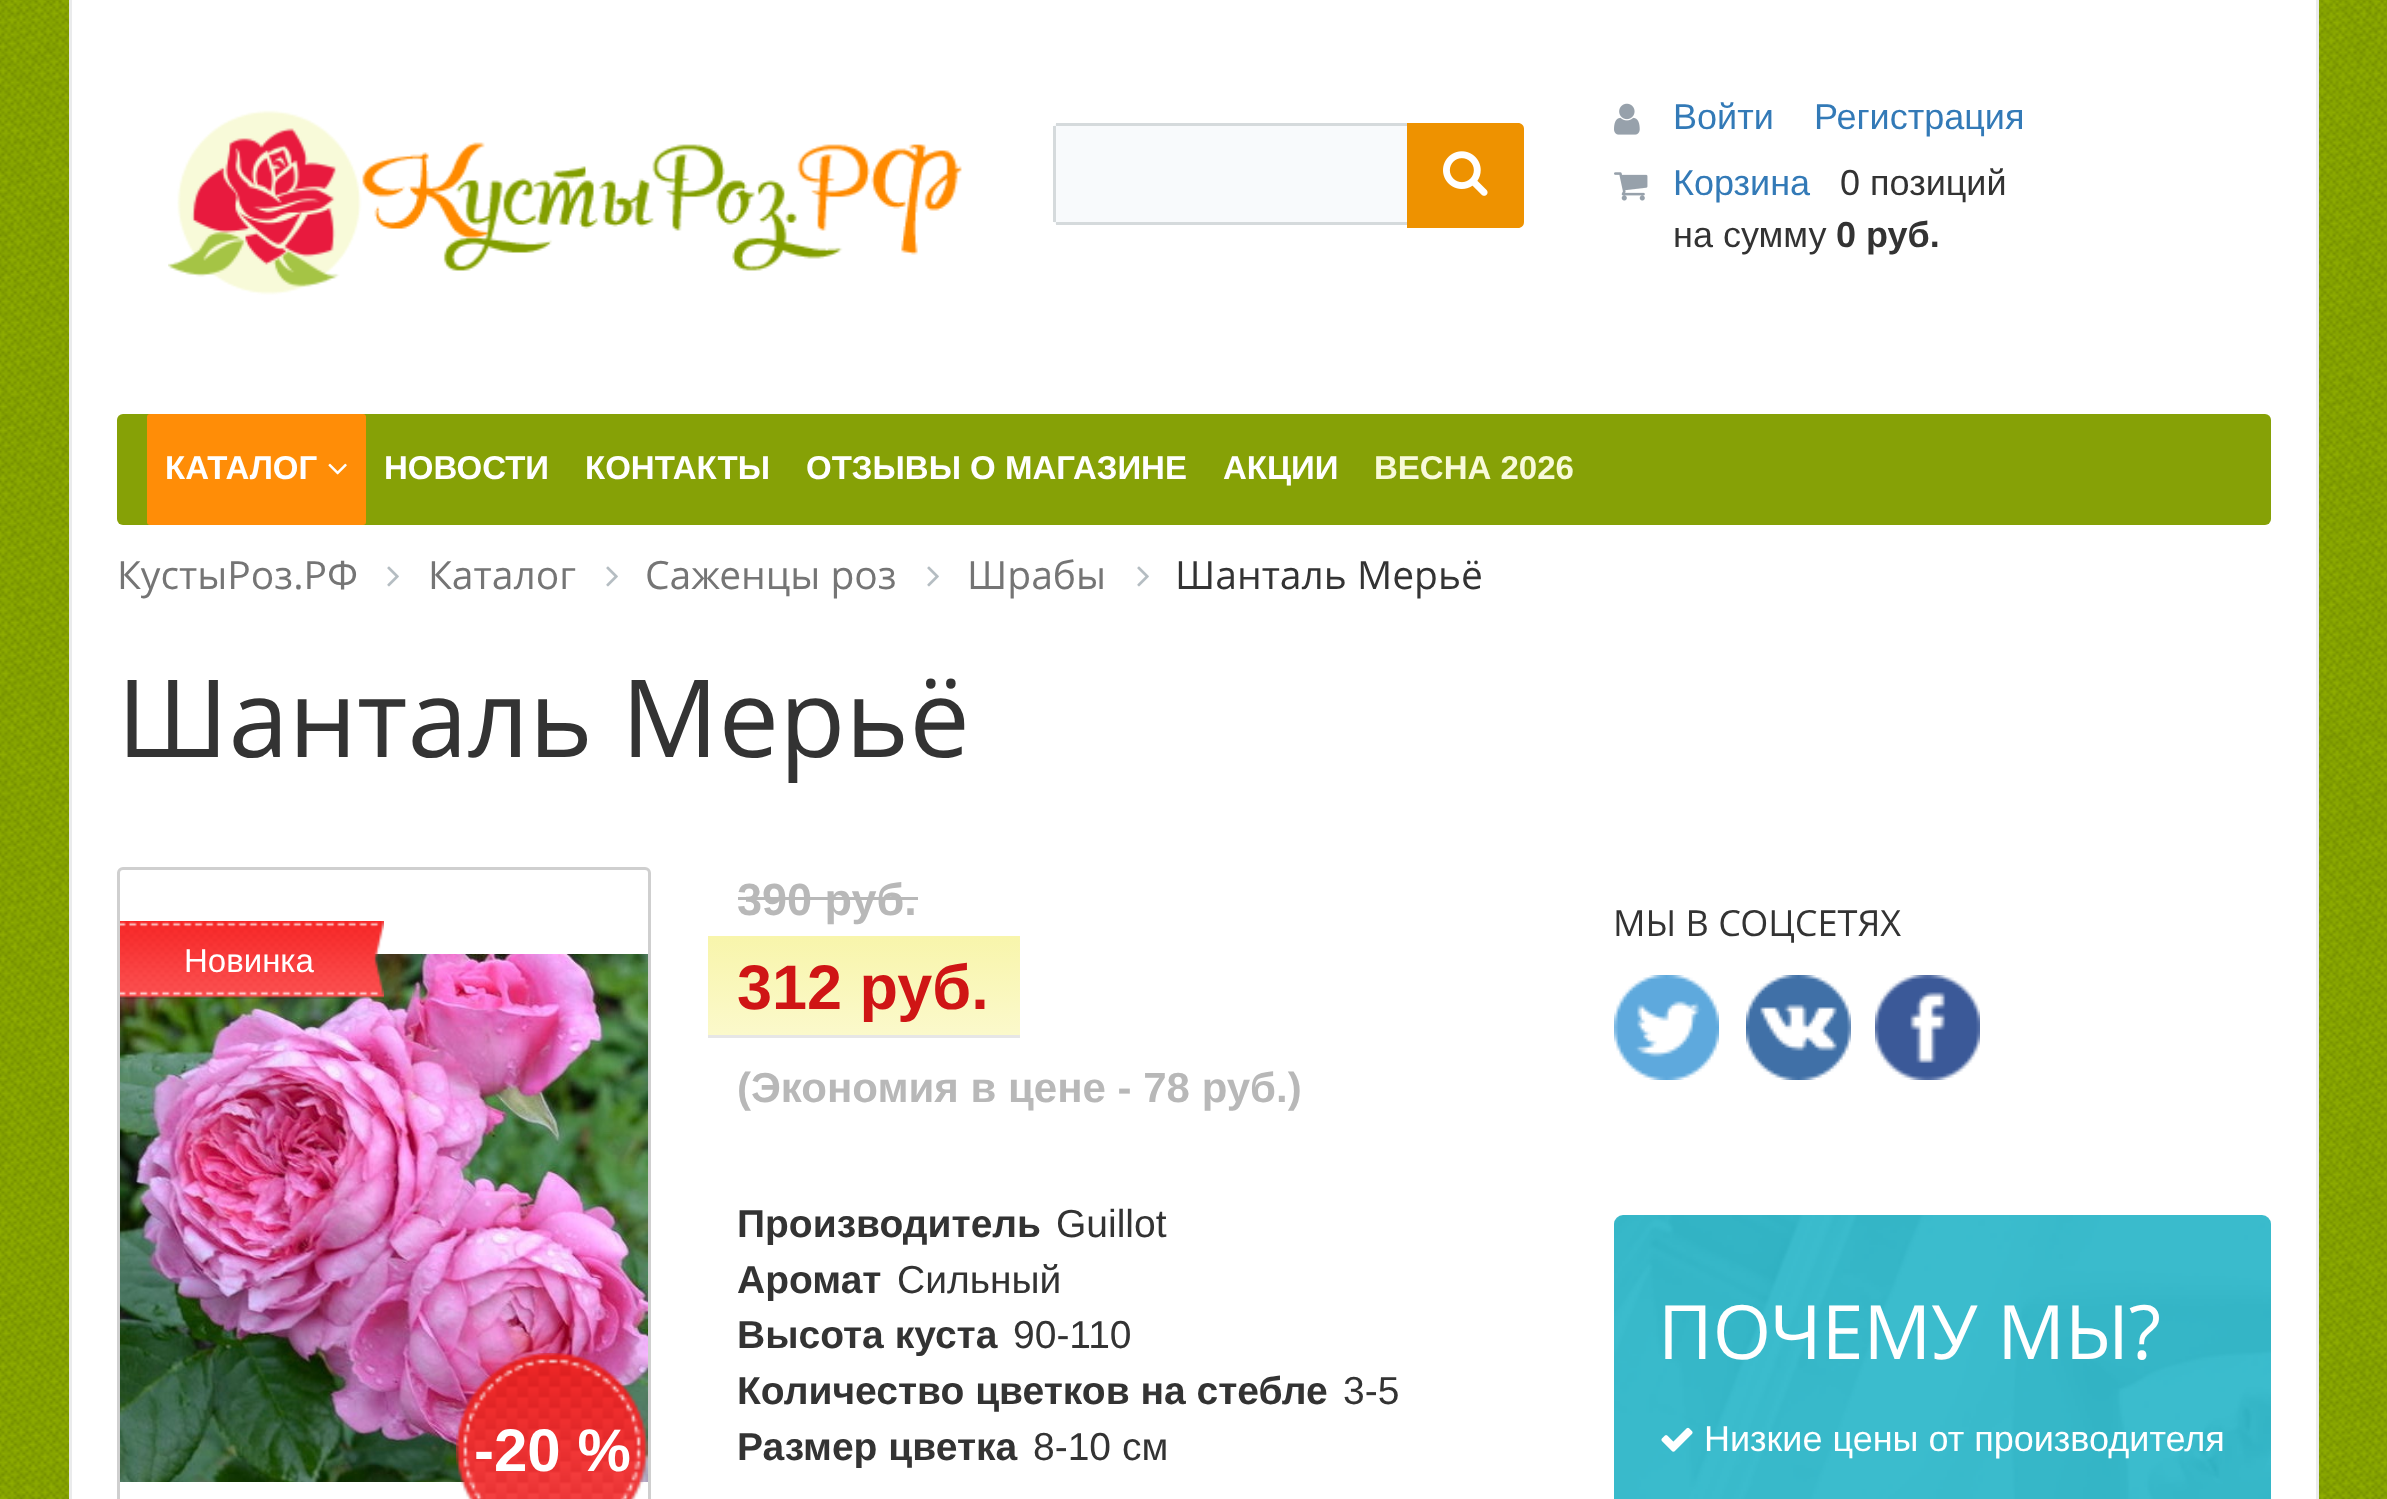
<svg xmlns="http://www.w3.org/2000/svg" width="2387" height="1499">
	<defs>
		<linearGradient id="g1" gradientUnits="userSpaceOnUse" x1="864" y1="936" x2="864" y2="1035"><stop offset="0" stop-color="#F8F5AB" /><stop offset="1" stop-color="#FBF9CB" /></linearGradient>
	</defs>
	<rect width="100%" height="100%" fill="#FFFFFF" />
	<image x="0" y="0" width="2387" height="1499" href="assets/img1.png" />
	<rect x="72" y="0" width="2244" height="1499" fill="#FFFFFF" />
	<rect x="2316" y="0" width="3" height="1499" fill="#EAEBEC" />
	<rect x="69" y="0" width="3" height="1499" fill="#EAEBEC" />
	<image x="168" y="110" width="794" height="185" href="assets/img2.png" />
	<path d="M1059 123H1407V225H1059C1055.5 225 1053 222.5 1053 219V129C1053 125.5 1055.5 123 1059 123Z" fill="#F8FAFC" />
	<rect x="1056" y="123" width="351" height="3" fill="#D5DADC" />
	<rect x="1056" y="222" width="351" height="3" fill="#D5DADC" />
	<rect x="1053" y="126" width="3" height="96" fill="#D5DADC" />
	<path d="M1407 123H1518C1521.5 123 1524 125.5 1524 129V222C1524 225.5 1521.5 228 1518 228H1407Z" fill="#EE9200" />
	<image x="1443" y="151" width="45" height="45" href="assets/img3.png" />
	<image x="1614" y="103" width="26" height="32" href="assets/img4.png" />
	<g font-family="Liberation Sans" font-size="36" fill="#337AB7">
		<text x="1673" y="129">Войти</text>
		<text x="1814" y="129">Регистрация</text>
	</g>
	<image x="1614" y="172" width="34" height="29" href="assets/img5.png" />
	<text x="1673" y="195" font-family="Liberation Sans" font-size="36" fill="#337AB7">Корзина</text>
	<g font-family="Liberation Sans" font-size="36" fill="#333333">
		<text x="1840" y="195">0 позиций</text>
		<text x="1673" y="247">на сумму</text>
	</g>
	<text x="1836" y="247" font-family="Liberation Sans" font-size="36" font-weight="700" fill="#333333">0 руб.</text>
	<rect x="117" y="414" width="2154" height="111" rx="6" fill="#86A106" />
	<rect x="147" y="414" width="219" height="111" rx="3" fill="#FF8D07" />
	<text x="165" y="479" font-family="Liberation Sans" font-size="33" font-weight="700" fill="#FFFFFF">КАТАЛОГ</text>
	<image x="328" y="463" width="19" height="12" href="assets/img6.png" />
	<g font-family="Liberation Sans" font-size="33" font-weight="700" fill="#FFFFFF">
		<text x="384" y="479">НОВОСТИ</text>
		<text x="585" y="479">КОНТАКТЫ</text>
		<text x="806" y="479">ОТЗЫВЫ О МАГАЗИНЕ</text>
		<text x="1223" y="479">АКЦИИ</text>
	</g>
	<text x="1374" y="479" font-family="Liberation Sans" font-size="33" font-weight="700" fill="#F8FAD9">ВЕСНА 2026</text>
	<text x="117" y="589" font-family="Open Sans" font-size="39" fill="#757575">КустыРоз.РФ</text>
	<image x="387" y="566" width="12" height="21" href="assets/img7.png" />
	<text x="428" y="589" font-family="Open Sans" font-size="39" fill="#757575">Каталог</text>
	<image x="606" y="566" width="12" height="21" href="assets/img7.png" />
	<text x="645" y="589" font-family="Open Sans" font-size="39" fill="#757575">Саженцы роз</text>
	<image x="927" y="566" width="12" height="21" href="assets/img7.png" />
	<text x="967" y="589" font-family="Open Sans" font-size="39" fill="#757575">Шрабы</text>
	<image x="1137" y="566" width="12" height="21" href="assets/img7.png" />
	<text x="1175" y="589" font-family="Open Sans" font-size="39" fill="#333333">Шанталь Мерьё</text>
	<text x="117" y="757" font-family="Open Sans" font-size="108" fill="#333333">Шанталь Мерьё</text>
	<rect x="118.5" y="868.5" width="531" height="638" rx="4.5" fill="none" stroke="#CFCFCF" stroke-width="3" />
	<image x="120" y="954" width="528" height="528" href="assets/img9.png" />
	<image x="120" y="921" width="264" height="78" href="assets/img8.png" />
	<text x="184" y="972" font-family="Liberation Sans" font-size="33" fill="#FFFFFF">Новинка</text>
	<image x="456" y="1353" width="192" height="146" href="assets/img10.png" />
	<text x="474" y="1471" font-family="Liberation Sans" font-size="60" font-weight="700" fill="#FFFFFF">-20 %</text>
	<text x="737" y="915" font-family="Liberation Sans" font-size="45" font-weight="700" fill="#B8B8B8">390 руб.</text>
	<rect x="738" y="897" width="180" height="3" fill="#B8B8B8" />
	<rect x="708" y="936" width="312" height="99" fill="url(#g1)" />
	<rect x="708" y="1035" width="312" height="3" fill="#E6E6E6" />
	<text x="737" y="1009" font-family="Liberation Sans" font-size="63" font-weight="700" fill="#CF1515">312 руб.</text>
	<text x="737" y="1102" font-family="Liberation Sans" font-size="42" font-weight="700" fill="#B8B8B8">(Экономия в цене - 78 руб.)</text>
	<text x="737" y="1237" font-family="Liberation Sans" font-size="39" font-weight="700" fill="#333333">Производитель</text>
	<text x="1056" y="1237" font-family="Liberation Sans" font-size="39" fill="#333333">Guillot</text>
	<text x="737" y="1293" font-family="Liberation Sans" font-size="39" font-weight="700" fill="#333333">Аромат</text>
	<text x="897" y="1293" font-family="Liberation Sans" font-size="39" fill="#333333">Сильный</text>
	<text x="737" y="1348" font-family="Liberation Sans" font-size="39" font-weight="700" fill="#333333">Высота куста</text>
	<text x="1013" y="1348" font-family="Liberation Sans" font-size="39" fill="#333333">90-110</text>
	<text x="737" y="1404" font-family="Liberation Sans" font-size="39" font-weight="700" fill="#333333">Количество цветков на стебле</text>
	<text x="1343" y="1404" font-family="Liberation Sans" font-size="39" fill="#333333">3-5</text>
	<text x="737" y="1460" font-family="Liberation Sans" font-size="39" font-weight="700" fill="#333333">Размер цветка</text>
	<text x="1033" y="1460" font-family="Liberation Sans" font-size="39" fill="#333333">8-10 см</text>
	<text x="1613" y="936" font-family="Open Sans" font-size="36" fill="#333333">МЫ В СОЦСЕТЯХ</text>
	<image x="1614" y="975" width="105" height="105" href="assets/img11.png" />
	<image x="1746" y="975" width="105" height="105" href="assets/img12.png" />
	<image x="1875" y="975" width="105" height="105" href="assets/img13.png" />
	<image x="1614" y="1215" width="657" height="284" href="assets/img14.png" />
	<text x="1658" y="1359" font-family="Open Sans" font-size="75" fill="#FFFFFF">ПОЧЕМУ МЫ?</text>
	<image x="1661" y="1427" width="32" height="25" href="assets/img15.png" />
	<text x="1704" y="1451" font-family="Liberation Sans" font-size="36" fill="#FFFFFF">Низкие цены от производителя</text>
</svg>
